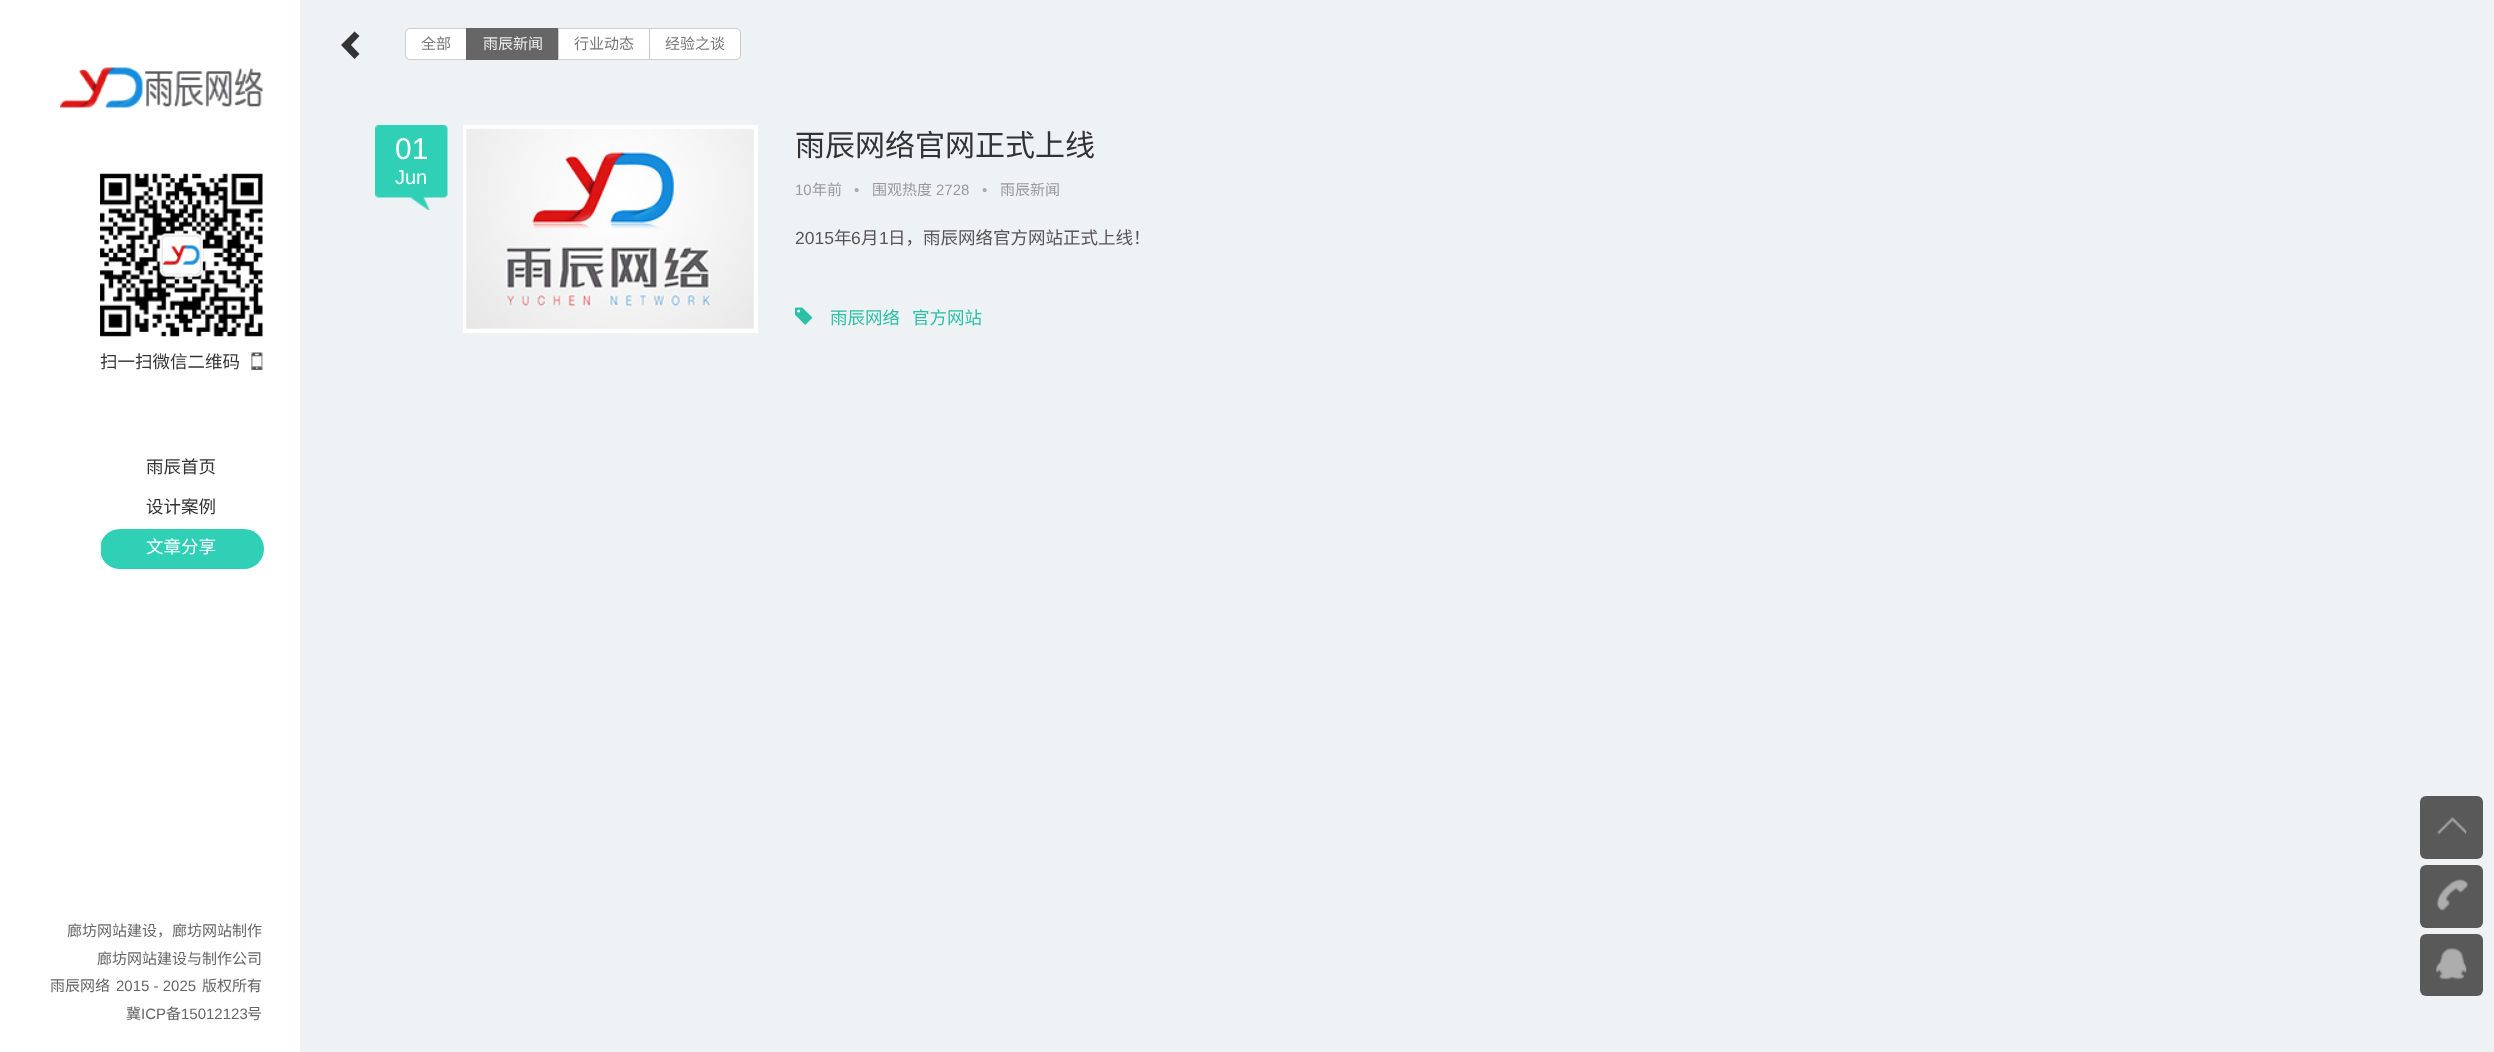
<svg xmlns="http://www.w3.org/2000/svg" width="2494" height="1052">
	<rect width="100%" height="100%" fill="#EFF2F4" />
	<path d="M359.5 36L351 45L359.5 54L354.5 59L341 45L354.5 31.5Z" fill="#333333" />
	<path d="M410 28.5H467.5V59.5H410C407.5 59.5 405.5 57.5 405.5 55V33C405.5 30.5 407.5 28.5 410 28.5Z" fill="#FFFFFF" stroke="#CCCCCC" />
	<text x="421" y="49" font-family="Noto Sans CJK SC" font-size="15" fill="#777777">全部</text>
	<rect x="466" y="28" width="92" height="32" fill="#666666" />
	<text x="483" y="49" font-family="Noto Sans CJK SC" font-size="15" fill="#EEEEEE">雨辰新闻</text>
	<rect x="558.5" y="28.5" width="91" height="31" fill="#FFFFFF" stroke="#CCCCCC" />
	<text x="574" y="49" font-family="Noto Sans CJK SC" font-size="15" fill="#777777">行业动态</text>
	<path d="M649.5 28.5H736C738.5 28.5 740.5 30.5 740.5 33V55C740.5 57.5 738.5 59.5 736 59.5H649.5Z" fill="#FFFFFF" stroke="#CCCCCC" />
	<text x="665" y="49" font-family="Noto Sans CJK SC" font-size="15" fill="#777777">经验之谈</text>
	<image x="375" y="125" width="73" height="85" href="assets/img1.png" />
	<text x="395" y="159" font-family="Liberation Sans" font-size="30" fill="#FFFFFF">01</text>
	<text x="395" y="184" font-family="Liberation Sans" font-size="20" fill="#FFFFFF">Jun</text>
	<rect x="463" y="125" width="295" height="208" fill="#FFFFFF" />
	<image x="466" y="128" width="288" height="201" href="assets/img2.png" />
	<text x="795" y="156" font-family="Noto Sans CJK SC" font-size="30" fill="#333333">雨辰网络官网正式上线</text>
	<text x="795" y="195" font-family="Liberation Sans" font-size="15" fill="#999999">10</text>
	<text x="812" y="195" font-family="Noto Sans CJK SC" font-size="15" fill="#999999">年前</text>
	<text x="854" y="195" font-family="Liberation Sans" font-size="15" fill="#AAAAAA">•</text>
	<text x="872" y="195" font-family="Noto Sans CJK SC" font-size="15" fill="#999999">围观热度</text>
	<text x="936" y="195" font-family="Liberation Sans" font-size="15" fill="#999999">2728</text>
	<text x="982" y="195" font-family="Liberation Sans" font-size="15" fill="#AAAAAA">•</text>
	<text x="1000" y="195" font-family="Noto Sans CJK SC" font-size="15" fill="#999999">雨辰新闻</text>
	<text x="795" y="244" font-family="Liberation Sans" font-size="17.5" fill="#555555">2015</text>
	<text x="834" y="244" font-family="Noto Sans CJK SC" font-size="17.5" fill="#555555">年</text>
	<text x="851" y="244" font-family="Liberation Sans" font-size="17.5" fill="#555555">6</text>
	<text x="861" y="244" font-family="Noto Sans CJK SC" font-size="17.5" fill="#555555">月</text>
	<text x="879" y="244" font-family="Liberation Sans" font-size="17.5" fill="#555555">1</text>
	<text x="888" y="244" font-family="Noto Sans CJK SC" font-size="17.5" fill="#555555">日，雨辰网络官方网站正式上线！</text>
	<image x="795" y="307" width="18" height="18" href="assets/img3.png" />
	<g font-family="Noto Sans CJK SC" font-size="17.5" fill="#2CC0A7">
		<text x="830" y="324">雨辰网络</text>
		<text x="912" y="324">官方网站</text>
	</g>
	<rect x="0" y="0" width="300" height="1052" fill="#FFFFFF" />
	<image x="60" y="67" width="203" height="41" href="assets/img4.png" />
	<image x="100" y="173" width="163" height="164" href="assets/img5.png" />
	<text x="100" y="368" font-family="Noto Sans CJK SC" font-size="17.5" fill="#333333">扫一扫微信二维码</text>
	<image x="251" y="352" width="12" height="18" href="assets/img6.png" />
	<g font-family="Noto Sans CJK SC" font-size="17.5" fill="#333333">
		<text x="146" y="473">雨辰首页</text>
		<text x="146" y="513">设计案例</text>
	</g>
	<rect x="100" y="529" width="164" height="40" rx="20" fill="#2FD0B5" />
	<rect x="100" y="539" width="1" height="20" fill="#EEEEEE" />
	<text x="146" y="553" font-family="Noto Sans CJK SC" font-size="17.5" fill="#FFFFFF">文章分享</text>
	<g font-family="Noto Sans CJK SC" font-size="15" fill="#666666">
		<text x="67" y="936">廊坊网站建设，廊坊网站制作</text>
		<text x="97" y="964">廊坊网站建设与制作公司</text>
		<text x="50" y="991">雨辰网络</text>
	</g>
	<text x="116" y="991" font-family="Liberation Sans" font-size="15" fill="#666666">2015 - 2025</text>
	<g font-family="Noto Sans CJK SC" font-size="15" fill="#666666">
		<text x="202" y="991">版权所有</text>
		<text x="126" y="1019">冀</text>
	</g>
	<text x="141" y="1019" font-family="Liberation Sans" font-size="15" fill="#666666">ICP</text>
	<text x="166" y="1019" font-family="Noto Sans CJK SC" font-size="15" fill="#666666">备</text>
	<text x="181" y="1019" font-family="Liberation Sans" font-size="15" fill="#666666">15012123</text>
	<text x="247" y="1019" font-family="Noto Sans CJK SC" font-size="15" fill="#666666">号</text>
	<rect x="2420" y="796" width="63" height="63" rx="6" fill="#59595A" />
	<image x="2437" y="817" width="30" height="18" href="assets/img7.png" />
	<rect x="2420" y="865" width="63" height="63" rx="6" fill="#59595A" />
	<image x="2437" y="879" width="31" height="32" href="assets/img8.png" />
	<rect x="2420" y="934" width="63" height="62" rx="6" fill="#59595A" />
	<image x="2436" y="948" width="31" height="32" href="assets/img9.png" />
</svg>
